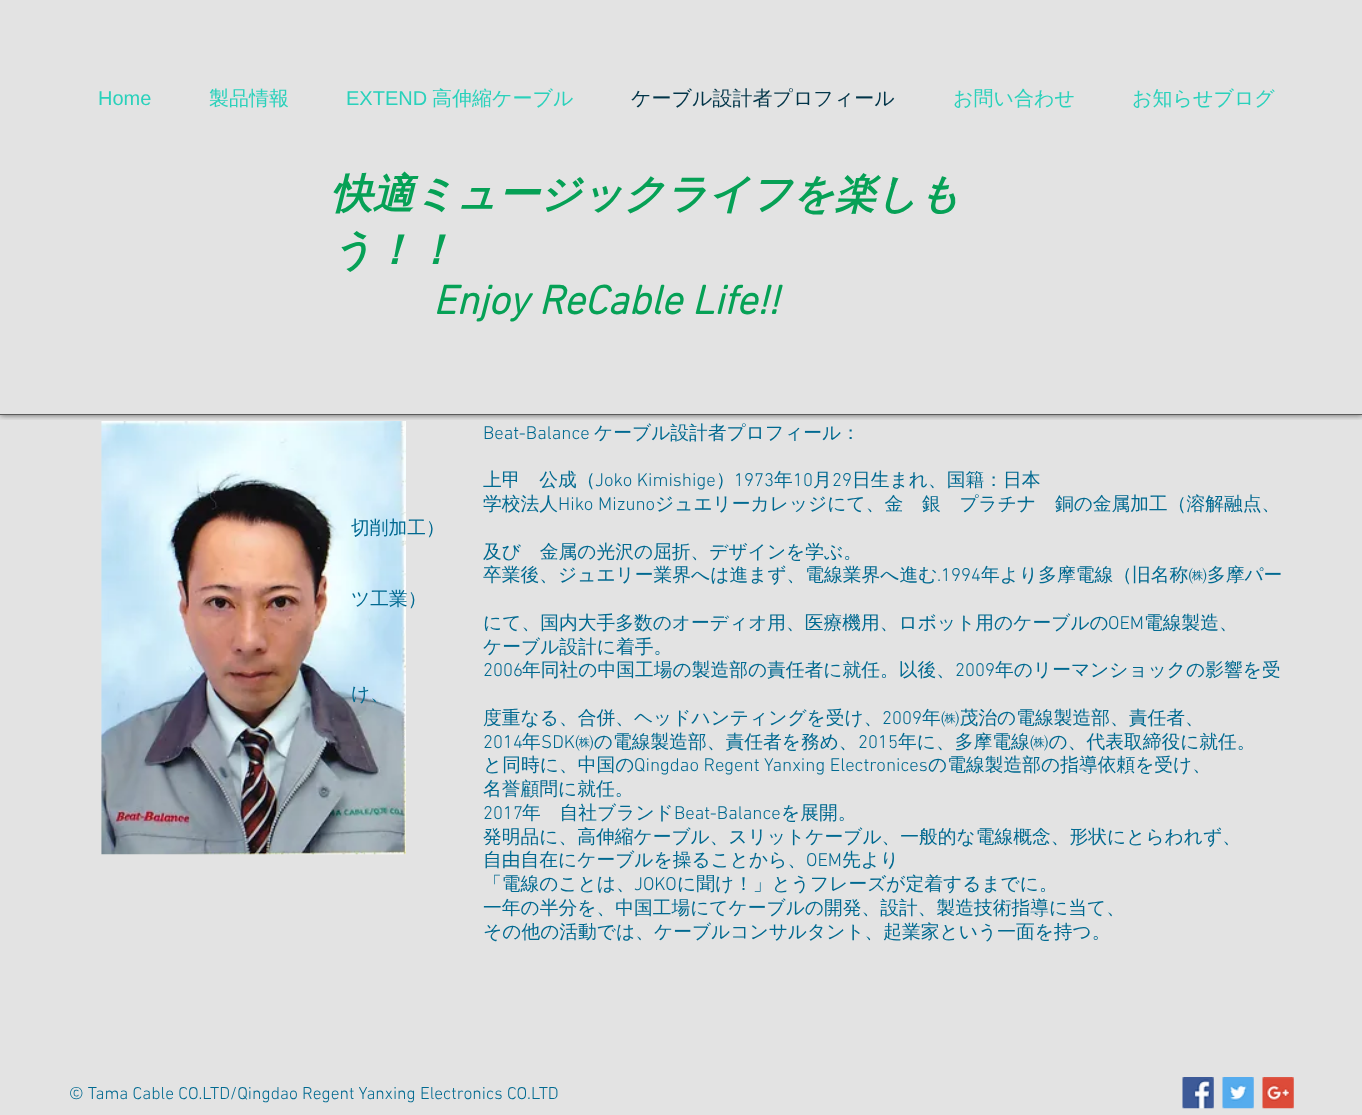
<svg xmlns="http://www.w3.org/2000/svg" width="1362" height="1115">
	<defs>
		<clipPath id="clip1"><rect x="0" y="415" width="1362" height="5" /></clipPath>
	</defs>
	<rect width="100%" height="100%" fill="#E3E3E3" />
	<g clip-path="url(#clip1)">
		<rect x="0" y="-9" width="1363" height="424" fill="#000000" fill-opacity="0.6" filter="blur(3px)" />
	</g>
	<rect x="0" y="414" width="1362" height="1" fill="#5B5B5B" />
	<text x="98" y="105" font-family="Liberation Sans" font-size="20" fill="#2AD1BB">Home</text>
	<text x="209" y="105" font-family="WenQuanYi Zen Hei" font-size="20" font-weight="500" fill="#2AD1BB">製品情報</text>
	<text x="346" y="105" font-family="Liberation Sans" font-size="20" fill="#2AD1BB">EXTEND</text>
	<text x="432" y="105" font-family="WenQuanYi Zen Hei" font-size="20" font-weight="500" fill="#2AD1BB">高伸縮ケーブル</text>
	<text x="631" y="105" font-family="WenQuanYi Zen Hei" font-size="20" font-weight="500" fill="#003448">ケーブル設計者プロフィール</text>
	<g font-family="WenQuanYi Zen Hei" font-size="20" font-weight="500" fill="#2AD1BB">
		<text x="953" y="105">お問い合わせ</text>
		<text x="1132" y="105">お知らせブログ</text>
	</g>
	<g font-family="WenQuanYi Zen Hei" font-size="41.25" font-weight="700" font-style="italic" fill="#06A156">
		<text x="331" y="208">快適ミュージックライフを楽しも</text>
		<text x="331" y="264">う！！</text>
	</g>
	<text x="433" y="314" font-family="'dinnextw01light'" font-size="41.25" font-weight="700" font-style="italic" fill="#06A156">Enjoy ReCable Life!!</text>
	<image x="101" y="421" width="305" height="434" href="assets/img1.png" />
	<text x="483" y="439" font-family="'dinnextw01light'" font-size="18.75" font-weight="300" fill="#006990">Beat-Balance</text>
	<g font-family="WenQuanYi Zen Hei" font-size="18.75" font-weight="500" fill="#006990">
		<text x="594" y="439">ケーブル設計者プロフィール：</text>
		<text x="483" y="486">上甲　公成（</text>
	</g>
	<text x="595" y="486" font-family="'dinnextw01light'" font-size="18.75" font-weight="300" fill="#006990">Joko Kimishige</text>
	<text x="716" y="486" font-family="WenQuanYi Zen Hei" font-size="18.75" font-weight="500" fill="#006990">）</text>
	<text x="734" y="486" font-family="'dinnextw01light'" font-size="18.75" font-weight="300" fill="#006990">1973</text>
	<text x="774" y="486" font-family="WenQuanYi Zen Hei" font-size="18.75" font-weight="500" fill="#006990">年</text>
	<text x="793" y="486" font-family="'dinnextw01light'" font-size="18.75" font-weight="300" fill="#006990">10</text>
	<text x="813" y="486" font-family="WenQuanYi Zen Hei" font-size="18.75" font-weight="500" fill="#006990">月</text>
	<text x="832" y="486" font-family="'dinnextw01light'" font-size="18.75" font-weight="300" fill="#006990">29</text>
	<g font-family="WenQuanYi Zen Hei" font-size="18.75" font-weight="500" fill="#006990">
		<text x="852" y="486">日生まれ、国籍：日本</text>
		<text x="483" y="510">学校法人</text>
	</g>
	<text x="558" y="510" font-family="'dinnextw01light'" font-size="18.75" font-weight="300" fill="#006990">Hiko Mizuno</text>
	<g font-family="WenQuanYi Zen Hei" font-size="18.75" font-weight="500" fill="#006990">
		<text x="655" y="510">ジュエリーカレッジにて、金　銀　プラチナ　銅の金属加工（溶解融点、</text>
		<text x="351" y="534">切削加工）</text>
		<text x="483" y="558">及び　金属の光沢の屈折、デザインを学ぶ。</text>
		<text x="483" y="581">卒業後、ジュエリー業界へは進まず、電線業界へ進む</text>
	</g>
	<text x="937" y="581" font-family="'dinnextw01light'" font-size="18.75" font-weight="300" fill="#006990">.1994</text>
	<g font-family="WenQuanYi Zen Hei" font-size="18.75" font-weight="500" fill="#006990">
		<text x="981" y="581">年より多摩電線（旧名称㈱多摩パー</text>
		<text x="351" y="605">ツ工業）</text>
		<text x="483" y="629">にて、国内大手多数のオーディオ用、医療機用、ロボット用のケーブルの</text>
	</g>
	<text x="1108" y="629" font-family="'dinnextw01light'" font-size="18.75" font-weight="300" fill="#006990">OEM</text>
	<g font-family="WenQuanYi Zen Hei" font-size="18.75" font-weight="500" fill="#006990">
		<text x="1144" y="629">電線製造、</text>
		<text x="483" y="653">ケーブル設計に着手。</text>
	</g>
	<text x="483" y="676" font-family="'dinnextw01light'" font-size="18.75" font-weight="300" fill="#006990">2006</text>
	<text x="522" y="676" font-family="WenQuanYi Zen Hei" font-size="18.75" font-weight="500" fill="#006990">年同社の中国工場の製造部の責任者に就任。以後、</text>
	<text x="955" y="676" font-family="'dinnextw01light'" font-size="18.75" font-weight="300" fill="#006990">2009</text>
	<g font-family="WenQuanYi Zen Hei" font-size="18.75" font-weight="500" fill="#006990">
		<text x="995" y="676">年のリーマンショックの影響を受</text>
		<text x="351" y="700">け、</text>
		<text x="483" y="724">度重なる、合併、ヘッドハンティングを受け、</text>
	</g>
	<text x="882" y="724" font-family="'dinnextw01light'" font-size="18.75" font-weight="300" fill="#006990">2009</text>
	<text x="922" y="724" font-family="WenQuanYi Zen Hei" font-size="18.75" font-weight="500" fill="#006990">年㈱茂治の電線製造部、責任者、</text>
	<text x="483" y="748" font-family="'dinnextw01light'" font-size="18.75" font-weight="300" fill="#006990">2014</text>
	<text x="522" y="748" font-family="WenQuanYi Zen Hei" font-size="18.75" font-weight="500" fill="#006990">年</text>
	<text x="541" y="748" font-family="'dinnextw01light'" font-size="18.75" font-weight="300" fill="#006990">SDK</text>
	<text x="575" y="748" font-family="WenQuanYi Zen Hei" font-size="18.75" font-weight="500" fill="#006990">㈱の電線製造部、責任者を務め、</text>
	<text x="858" y="748" font-family="'dinnextw01light'" font-size="18.75" font-weight="300" fill="#006990">2015</text>
	<g font-family="WenQuanYi Zen Hei" font-size="18.75" font-weight="500" fill="#006990">
		<text x="898" y="748">年に、多摩電線㈱の、代表取締役に就任。</text>
		<text x="483" y="771">と同時に、中国の</text>
	</g>
	<text x="634" y="771" font-family="'dinnextw01light'" font-size="18.75" font-weight="300" fill="#006990">Qingdao Regent Yanxing Electronices</text>
	<g font-family="WenQuanYi Zen Hei" font-size="18.75" font-weight="500" fill="#006990">
		<text x="928" y="771">の電線製造部の指導依頼を受け、</text>
		<text x="483" y="795">名誉顧問に就任。</text>
	</g>
	<text x="483" y="819" font-family="'dinnextw01light'" font-size="18.75" font-weight="300" fill="#006990">2017</text>
	<text x="522" y="819" font-family="WenQuanYi Zen Hei" font-size="18.75" font-weight="500" fill="#006990">年　自社ブランド</text>
	<text x="674" y="819" font-family="'dinnextw01light'" font-size="18.75" font-weight="300" fill="#006990">Beat-Balance</text>
	<g font-family="WenQuanYi Zen Hei" font-size="18.75" font-weight="500" fill="#006990">
		<text x="781" y="819">を展開。</text>
		<text x="483" y="843">発明品に、高伸縮ケーブル、スリットケーブル、一般的な電線概念、形状にとらわれず、</text>
		<text x="483" y="866">自由自在にケーブルを操ることから、</text>
	</g>
	<text x="806" y="866" font-family="'dinnextw01light'" font-size="18.75" font-weight="300" fill="#006990">OEM</text>
	<g font-family="WenQuanYi Zen Hei" font-size="18.75" font-weight="500" fill="#006990">
		<text x="842" y="866">先より</text>
		<text x="483" y="890">「電線のことは、</text>
	</g>
	<text x="634" y="890" font-family="'dinnextw01light'" font-size="18.75" font-weight="300" fill="#006990">JOKO</text>
	<g font-family="WenQuanYi Zen Hei" font-size="18.75" font-weight="500" fill="#006990">
		<text x="677" y="890">に聞け！」とうフレーズが定着するまでに。</text>
		<text x="483" y="914">一年の半分を、中国工場にてケーブルの開発、設計、製造技術指導に当て、</text>
		<text x="483" y="938">その他の活動では、ケーブルコンサルタント、起業家という一面を持つ。</text>
	</g>
	<text x="69" y="1099" font-family="'dinnextw01light'" font-size="17.5" font-weight="300" fill="#006990">© Tama Cable CO.LTD/Qingdao Regent Yanxing Electronics CO.LTD</text>
	<image x="1182" y="1077" width="32" height="32" href="assets/img2.png" />
	<image x="1222" y="1077" width="32" height="32" href="assets/img3.png" />
	<image x="1262" y="1077" width="32" height="32" href="assets/img4.png" />
</svg>
